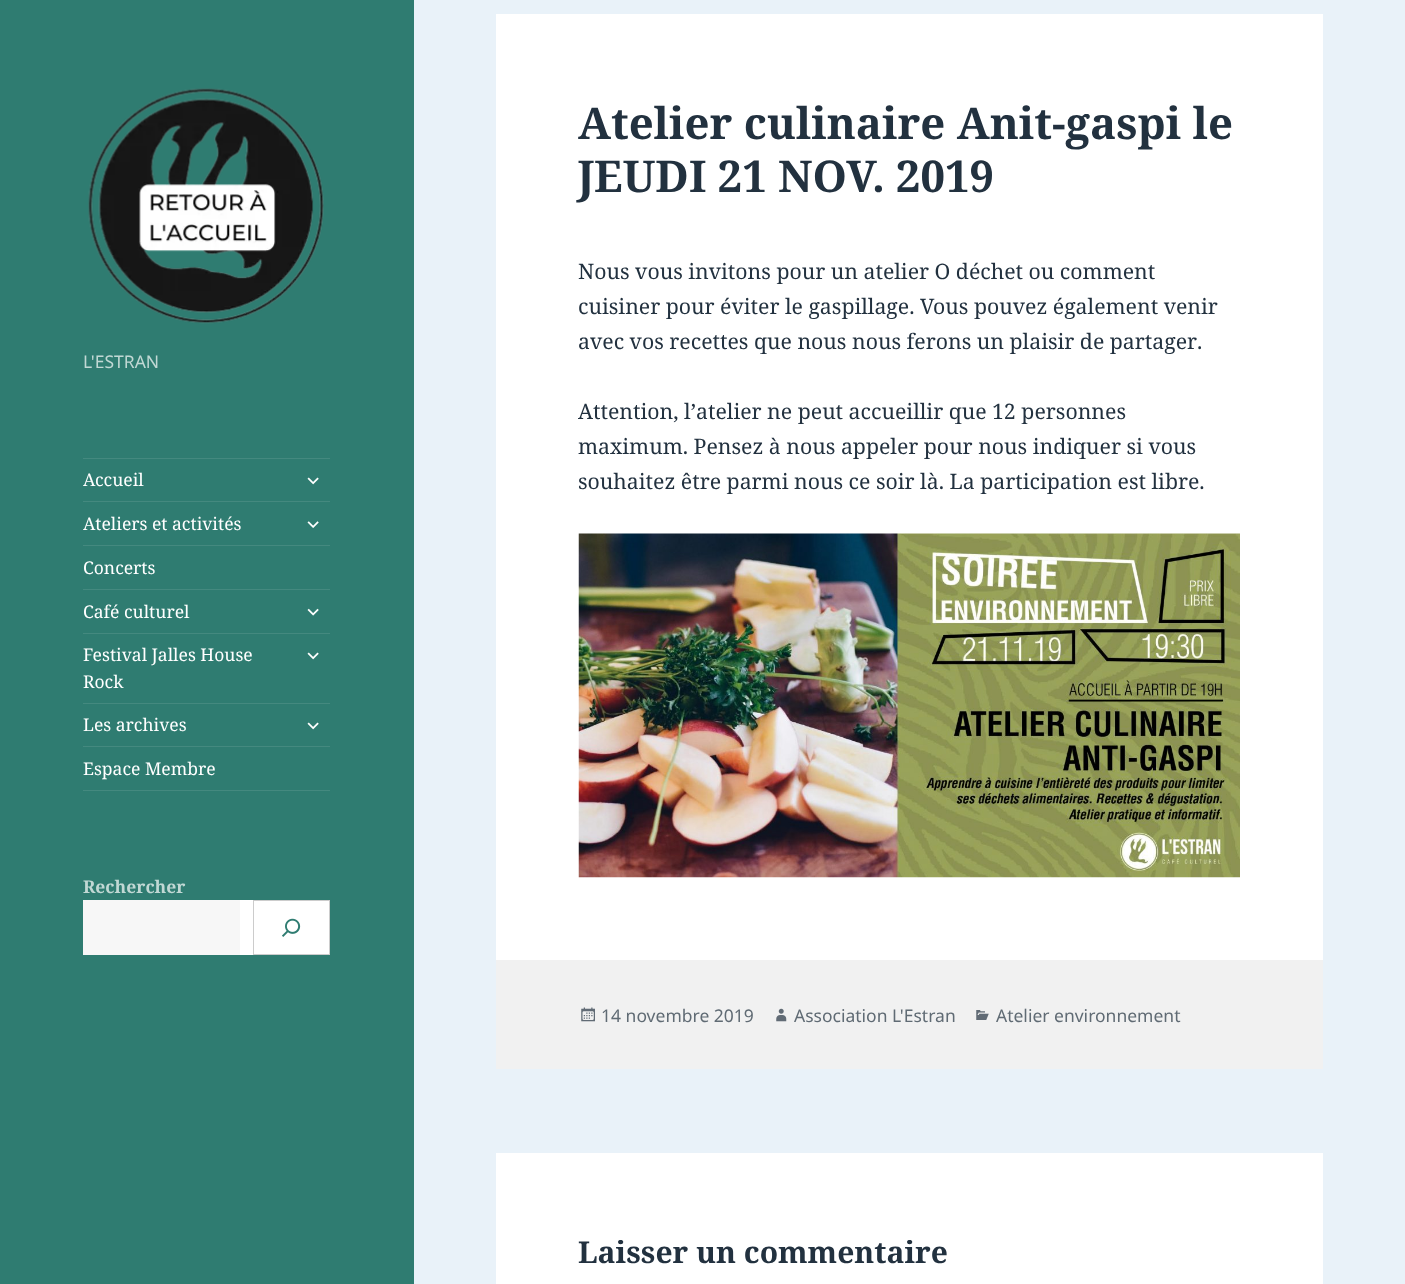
<svg xmlns="http://www.w3.org/2000/svg" width="1405" height="1284">
	<rect width="100%" height="100%" fill="#E9F2F9" />
	<rect x="0" y="0" width="414" height="1284" fill="#2F7C71" />
	<image x="88" y="88" width="236" height="236" href="assets/img1.png" />
	<text x="83" y="368" font-family="Noto Sans" font-size="17.5" fill="#C1D8D4">L'ESTRAN</text>
	<rect x="83" y="458" width="247" height="1" fill="#44897F" />
	<rect x="83" y="790" width="247" height="1" fill="#44897F" />
	<text x="83" y="486" font-family="Noto Serif" font-size="17.5" fill="#FFFFFF">Accueil</text>
	<image x="307" y="477" width="12" height="8" href="assets/img2.png" />
	<rect x="83" y="501" width="247" height="1" fill="#44897F" />
	<text x="83" y="530" font-family="Noto Serif" font-size="17.5" fill="#FFFFFF">Ateliers et activités</text>
	<image x="307" y="521" width="12" height="7" href="assets/img3.png" />
	<rect x="83" y="545" width="247" height="1" fill="#44897F" />
	<text x="83" y="574" font-family="Noto Serif" font-size="17.5" fill="#FFFFFF">Concerts</text>
	<rect x="83" y="589" width="247" height="1" fill="#44897F" />
	<text x="83" y="618" font-family="Noto Serif" font-size="17.5" fill="#FFFFFF">Café culturel</text>
	<image x="307" y="608" width="12" height="8" href="assets/img4.png" />
	<rect x="83" y="633" width="247" height="1" fill="#44897F" />
	<g font-family="Noto Serif" font-size="17.5" fill="#FFFFFF">
		<text x="83" y="661">Festival Jalles House</text>
		<text x="83" y="688">Rock</text>
	</g>
	<image x="307" y="652" width="12" height="8" href="assets/img2.png" />
	<rect x="83" y="703" width="247" height="1" fill="#44897F" />
	<text x="83" y="731" font-family="Noto Serif" font-size="17.5" fill="#FFFFFF">Les archives</text>
	<image x="307" y="722" width="12" height="8" href="assets/img2.png" />
	<rect x="83" y="746" width="247" height="1" fill="#44897F" />
	<text x="83" y="775" font-family="Noto Serif" font-size="17.5" fill="#FFFFFF">Espace Membre</text>
	<text x="83" y="893" font-family="Noto Serif" font-size="17.5" font-weight="700" fill="#C1D8D4">Rechercher</text>
	<rect x="240" y="900" width="89" height="55" fill="#FFFFFF" />
	<rect x="83" y="900" width="157" height="55" fill="#F7F7F7" />
	<rect x="253.5" y="900.5" width="76" height="54" fill="none" stroke="#CCCCCC" />
	<image x="282" y="918" width="19" height="19" href="assets/img5.png" />
	<rect x="496" y="14" width="827" height="946" fill="#FFFFFF" />
	<g font-family="Noto Serif" font-size="43.75" font-weight="700" fill="#22313F">
		<text x="578" y="139">Atelier culinaire Anit-gaspi le</text>
		<text x="578" y="192">JEUDI 21 NOV. 2019</text>
	</g>
	<g font-family="Noto Serif" font-size="21.25" fill="#22313F">
		<text x="578" y="279">Nous vous invitons pour un atelier O déchet ou comment</text>
		<text x="578" y="314">cuisiner pour éviter le gaspillage. Vous pouvez également venir</text>
		<text x="578" y="349">avec vos recettes que nous nous ferons un plaisir de partager.</text>
		<text x="578" y="419">Attention, l’atelier ne peut accueillir que 12 personnes</text>
		<text x="578" y="454">maximum. Pensez à nous appeler pour nous indiquer si vous</text>
		<text x="578" y="489">souhaitez être parmi nous ce soir là. La participation est libre.</text>
	</g>
	<image x="578" y="533" width="662" height="345" href="assets/img6.png" />
	<rect x="496" y="960" width="827" height="109" fill="#F1F1F1" />
	<image x="581" y="1007" width="14" height="15" href="assets/img7.png" />
	<text x="601" y="1022" font-family="Noto Sans" font-size="17.5" fill="#606B74">14 novembre 2019</text>
	<image x="776" y="1008" width="11" height="14" href="assets/img8.png" />
	<text x="794" y="1022" font-family="Noto Sans" font-size="17.5" fill="#606B74">Association L'Estran</text>
	<image x="976" y="1010" width="13" height="10" href="assets/img9.png" />
	<text x="996" y="1022" font-family="Noto Sans" font-size="17.5" fill="#606B74">Atelier environnement</text>
	<rect x="496" y="1153" width="827" height="131" fill="#FFFFFF" />
	<text x="578" y="1263" font-family="Noto Serif" font-size="30" font-weight="700" fill="#22313F">Laisser un commentaire</text>
</svg>
